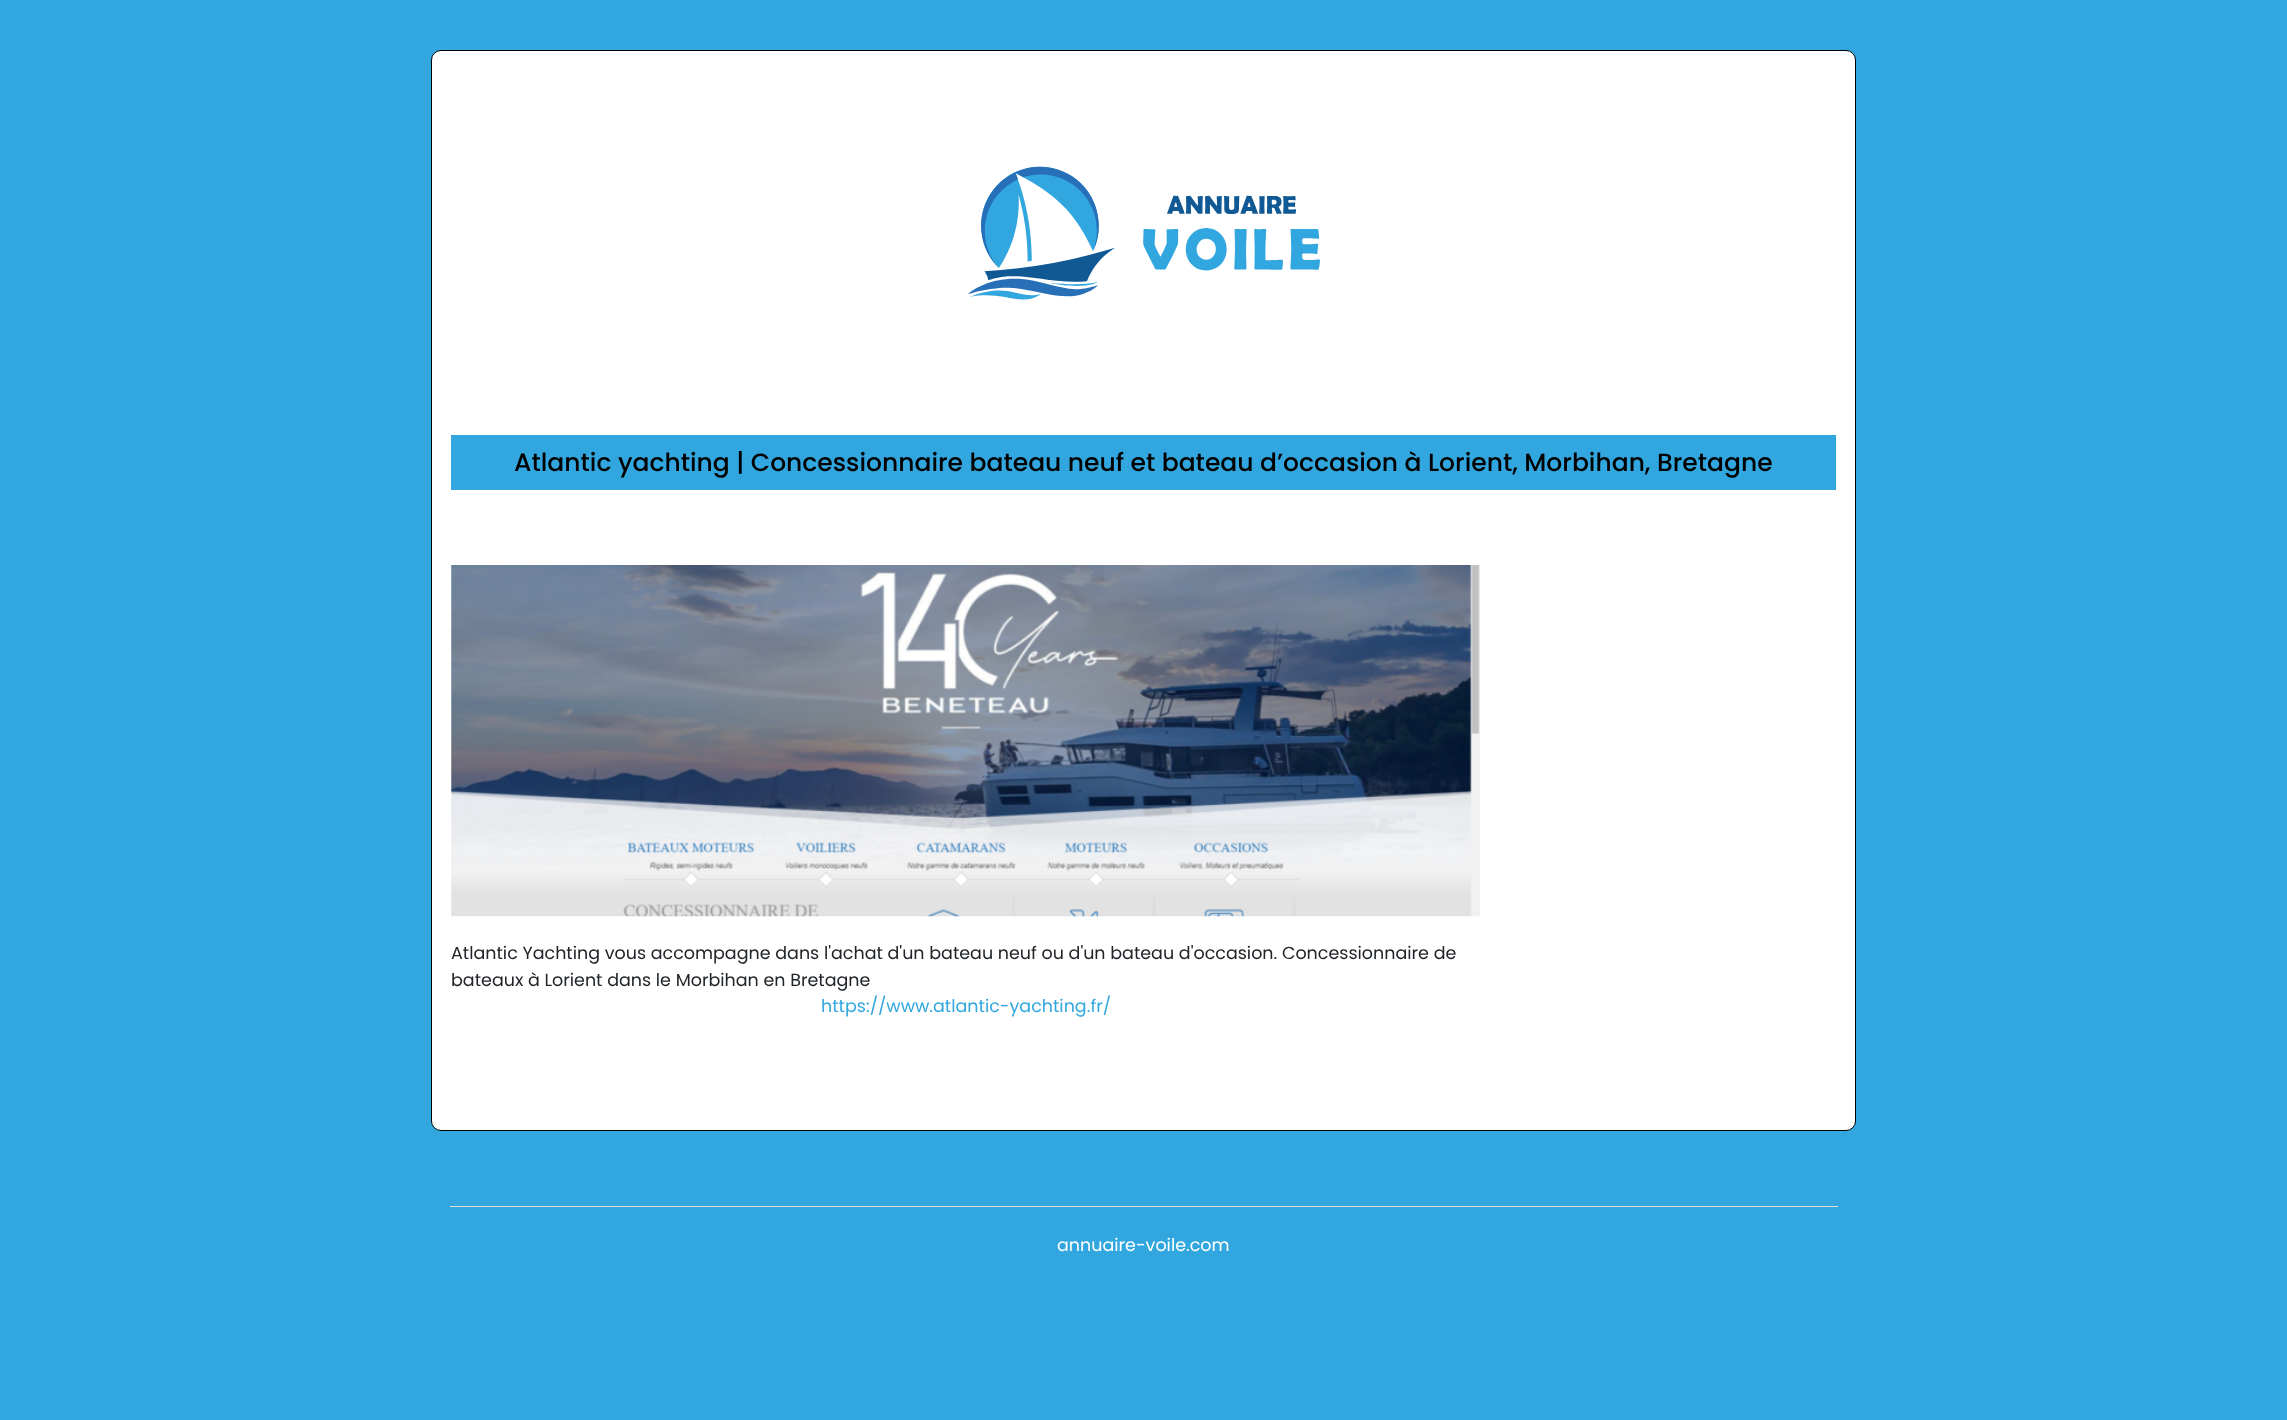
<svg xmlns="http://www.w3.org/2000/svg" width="2287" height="1420">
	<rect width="100%" height="100%" fill="#32A7DF" />
	<rect x="431.5" y="50.5" width="1424" height="1080" rx="9.5" fill="#FFFFFF" stroke="#000000" />
	<image x="967" y="166" width="353" height="134" href="assets/img1.png" />
	<rect x="451" y="435" width="1385" height="55" fill="#32A7DF" />
	<text x="514" y="471" font-family="Poppins" font-size="25" font-weight="500" fill="#000000">Atlantic yachting | Concessionnaire bateau neuf et bateau d’occasion à Lorient, Morbihan, Bretagne</text>
	<image x="451" y="565" width="1029" height="352" href="assets/img2.png" />
	<g font-family="Poppins" font-size="17.5" fill="#212529">
		<text x="451" y="959">Atlantic Yachting vous accompagne dans l'achat d'un bateau neuf ou d'un bateau d'occasion. Concessionnaire de</text>
		<text x="451" y="986">bateaux à Lorient dans le Morbihan en Bretagne</text>
	</g>
	<text x="821" y="1012" font-family="Poppins" font-size="17.5" fill="#32A7DF">https://www.atlantic-yachting.fr/</text>
	<rect x="450" y="1206" width="1388" height="1" fill="#DDDDDD" />
	<text x="1057" y="1251" font-family="Poppins" font-size="17.5" fill="#FFFFFF">annuaire-voile.com</text>
</svg>
